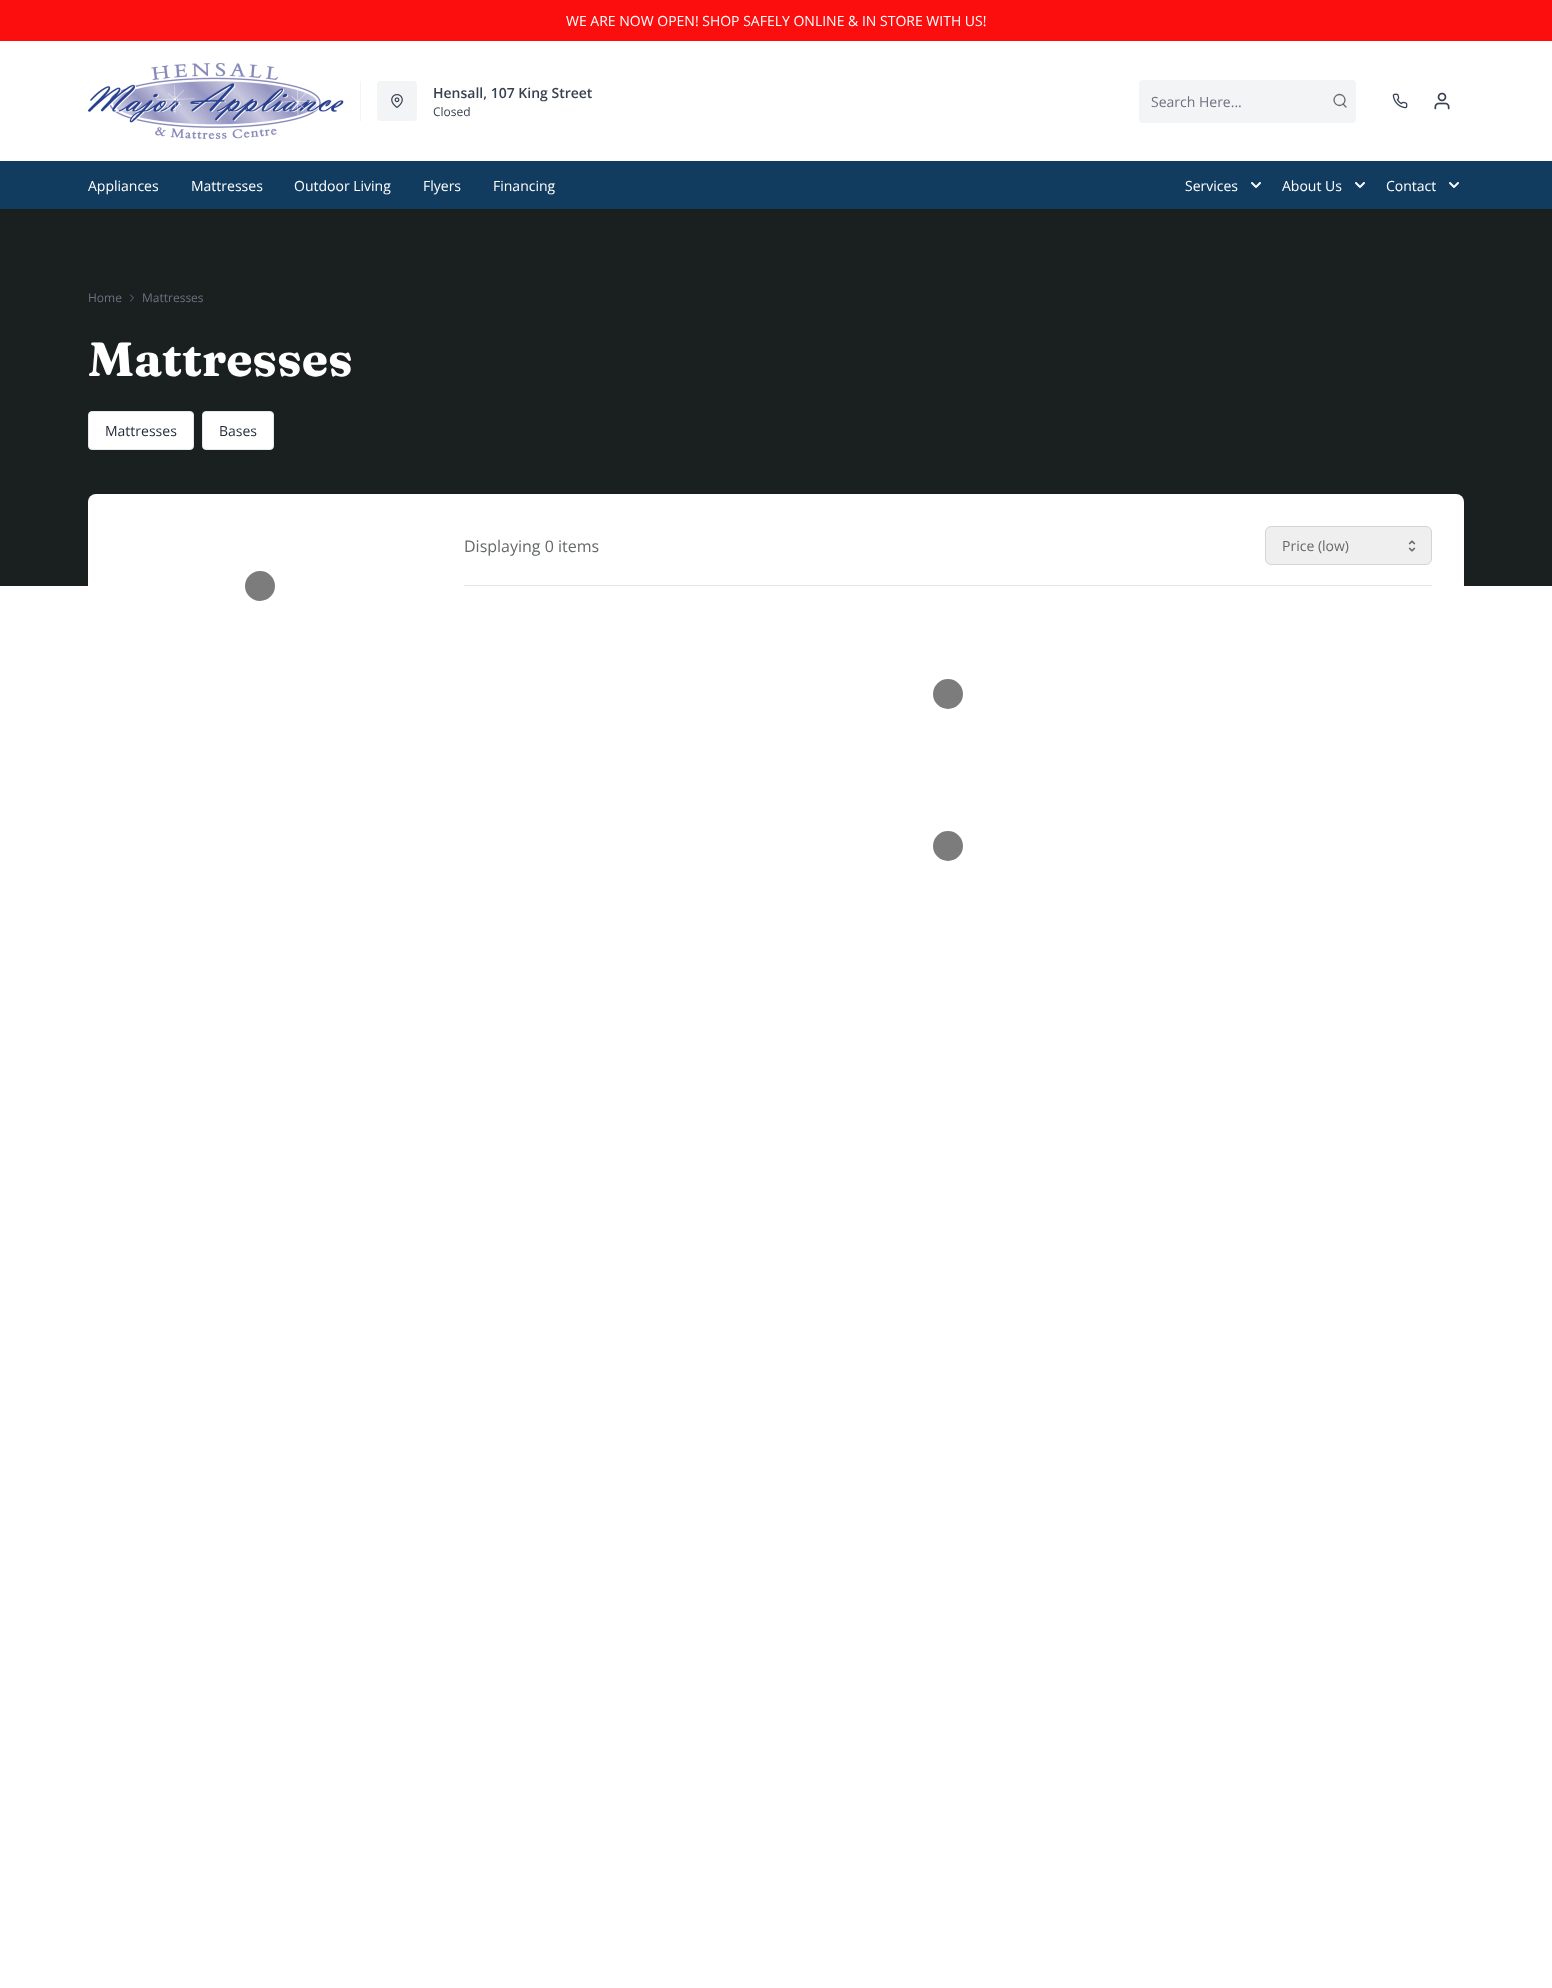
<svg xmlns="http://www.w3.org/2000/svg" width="1552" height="1988">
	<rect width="100%" height="100%" fill="#FFFFFF" />
	<rect x="0" y="0" width="1552" height="41" fill="#FD0E0E" />
	<text x="566" y="26" font-family="Open Sans" font-size="14" fill="#FFFFFF">WE ARE NOW OPEN! SHOP SAFELY ONLINE &amp; IN STORE WITH US!</text>
	<image x="88" y="63" width="256" height="76" href="assets/img1.png" />
	<rect x="360" y="81" width="1" height="40" fill="#F3F4F6" />
	<rect x="377" y="81" width="40" height="40" rx="4" fill="#F3F4F6" />
	<image x="391" y="94" width="12" height="14" href="assets/img2.png" />
	<text x="433" y="98" font-family="Open Sans" font-size="14" font-weight="600" fill="#374151">Hensall, 107 King Street</text>
	<text x="433" y="116" font-family="Open Sans" font-size="12" fill="#374151">Closed</text>
	<rect x="1139" y="80" width="217" height="43" rx="4" fill="#F3F4F6" />
	<text x="1151" y="107" font-family="Open Sans" font-size="14" fill="#6B7280">Search Here...</text>
	<circle cx="1339.5" cy="100" r="5.5" fill="none" stroke="#656A67" stroke-width="1.3" />
	<path d="M1346 107L1343 104" fill="none" stroke="#656A67" stroke-width="1.3" stroke-linecap="round" stroke-linejoin="round" />
	<image x="1392" y="93" width="16" height="16" href="assets/img3.png" />
	<image x="1434" y="92" width="16" height="18" href="assets/img4.png" />
	<rect x="0" y="209" width="1552" height="377" fill="#1A1F1F" />
	<rect x="0" y="162" width="1552" height="48" fill="#000000" fill-opacity="0.05" filter="blur(1.5px)" />
	<rect x="0" y="161" width="1552" height="48" fill="#113C5F" />
	<g font-family="Open Sans" font-size="14" fill="#FFFFFF">
		<text x="88" y="191">Appliances</text>
		<text x="191" y="191">Mattresses</text>
		<text x="294" y="191">Outdoor Living</text>
		<text x="423" y="191">Flyers</text>
		<text x="493" y="191">Financing</text>
		<text x="1185" y="191">Services</text>
	</g>
	<image x="1251" y="182" width="10" height="6" href="assets/img5.png" />
	<text x="1282" y="191" font-family="Open Sans" font-size="14" fill="#FFFFFF">About Us</text>
	<image x="1355" y="182" width="10" height="6" href="assets/img5.png" />
	<text x="1386" y="191" font-family="Open Sans" font-size="14" fill="#FFFFFF">Contact</text>
	<image x="1449" y="182" width="10" height="6" href="assets/img5.png" />
	<text x="88" y="302" font-family="Open Sans" font-size="12" fill="#6B7280">Home</text>
	<path d="M130.5 301L133.5 298L130.5 295" fill="none" stroke="#6B7280" stroke-linecap="round" stroke-linejoin="round" />
	<text x="142" y="302" font-family="Open Sans" font-size="12" fill="#6B7280">Mattresses</text>
	<text x="88" y="376" font-family="Fraunces" font-size="48" font-weight="700" fill="#FFFFFF">Mattresses</text>
	<rect x="88.5" y="411.5" width="105" height="38" rx="3.5" fill="#FFFFFF" stroke="#E5E7EB" />
	<text x="105" y="436" font-family="Open Sans" font-size="14" fill="#1F2937">Mattresses</text>
	<rect x="202.5" y="411.5" width="71" height="38" rx="3.5" fill="#FFFFFF" stroke="#E5E7EB" />
	<text x="219" y="436" font-family="Open Sans" font-size="14" fill="#1F2937">Bases</text>
	<rect x="88" y="494" width="1376" height="216" rx="8" fill="#FFFFFF" />
	<rect x="464" y="585" width="968" height="1" fill="#E5E7EB" />
	<text x="464" y="552" font-family="Open Sans" font-size="16" fill="#656A67">Displaying 0 items</text>
	<rect x="1265.5" y="526.5" width="166" height="38" rx="5.5" fill="#EFEFEF" stroke="#D1D5DB" />
	<text x="1282" y="551" font-family="Open Sans" font-size="14" fill="#656A67">Price (low)</text>
	<image x="1408" y="540" width="8" height="12" href="assets/img6.png" />
	<circle cx="948" cy="694" r="15" fill="#7C7C7C" />
	<circle cx="948" cy="846" r="15" fill="#7C7C7C" />
	<circle cx="260" cy="586" r="15" fill="#7C7C7C" />
</svg>
